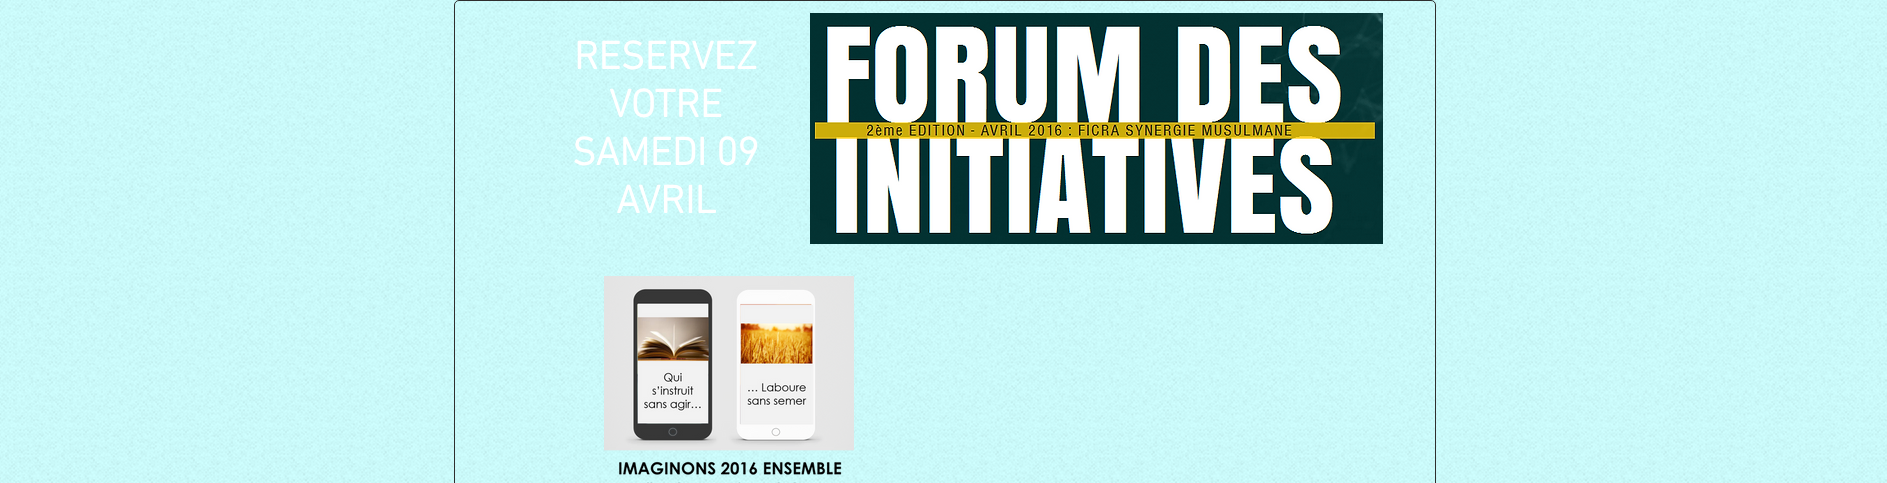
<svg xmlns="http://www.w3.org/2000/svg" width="1887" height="483">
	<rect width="100%" height="100%" fill="#CFFFFF" />
	<image x="0" y="0" width="1887" height="483" href="assets/img1.png" />
	<rect x="454.5" y="0.5" width="981" height="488" rx="4.5" fill="none" stroke="#2F2E2E" />
	<g font-family="'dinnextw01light'" font-size="40" font-weight="700" fill="#FFFFFF">
		<text x="574" y="69">RESERVEZ</text>
		<text x="609" y="117">VOTRE</text>
		<text x="572" y="165">SAMEDI 09</text>
		<text x="616" y="213">AVRIL</text>
	</g>
	<image x="810" y="13" width="573" height="231" href="assets/img2.png" />
	<image x="604" y="276" width="250" height="207" href="assets/img3.png" />
</svg>
